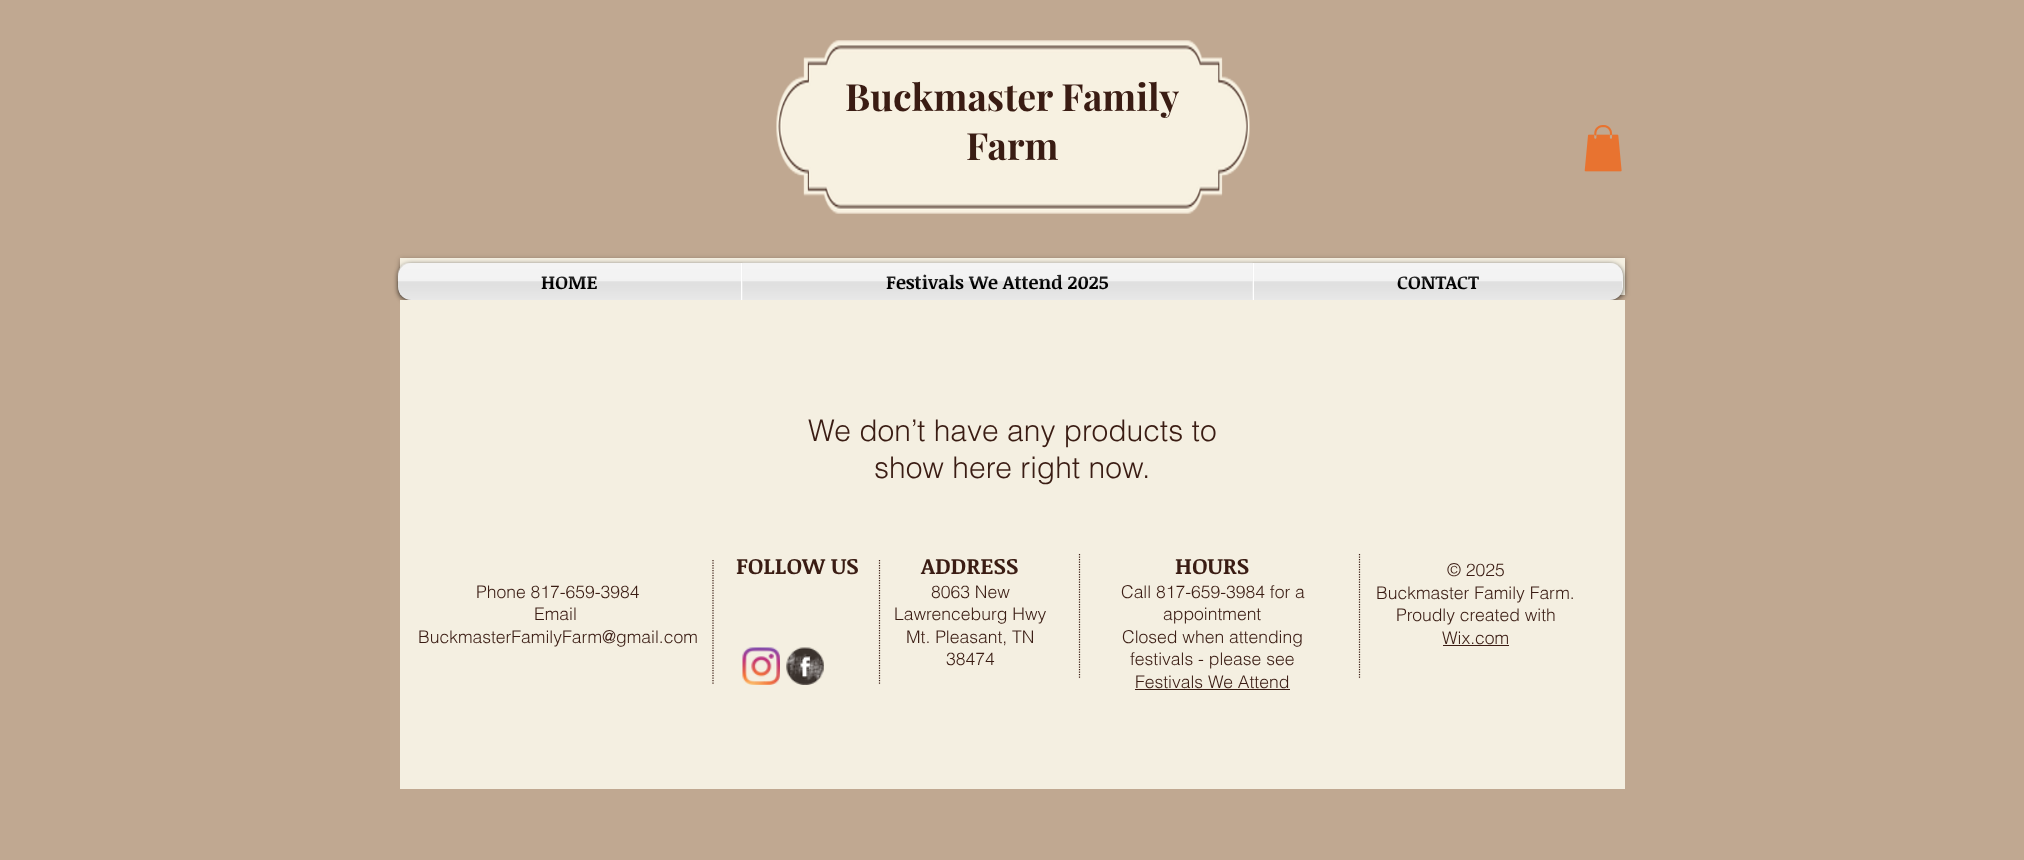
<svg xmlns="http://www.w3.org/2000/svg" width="2024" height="860">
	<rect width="100%" height="100%" fill="#C0A891" />
	<image x="776" y="40" width="474" height="174" href="assets/img1.png" />
	<g font-family="Playfair Display" font-size="37.5" font-weight="700" fill="#3A1C13">
		<text x="845" y="111">Buckmaster Family</text>
		<text x="966" y="160">Farm</text>
	</g>
	<image x="1584" y="125" width="38" height="47" href="assets/img2.png" />
	<rect x="400" y="259" width="1225" height="37" fill="#000000" fill-opacity="0.3" filter="blur(2.5px)" />
	<rect x="400" y="258" width="1225" height="37" fill="#F4EFE1" />
	<rect x="398" y="264" width="1225" height="37" rx="13" fill="#000000" fill-opacity="0.6" filter="blur(2.5px)" />
	<image x="397" y="263" width="1225" height="37" href="assets/img3.png" />
	<path d="M411 263H741V300H411C404 300 398 294 398 287V276C398 269 404 263 411 263Z" fill="#F1F1F1" />
	<text x="541" y="289" font-family="Noticia Text" font-size="18.75" font-weight="700" fill="#000000">HOME</text>
	<image x="397" y="263" width="344" height="37" href="assets/img4.png" />
	<rect x="742" y="263" width="511" height="37" fill="#F1F1F1" />
	<rect x="741" y="263" width="1" height="37" fill="#FFFFFF" />
	<text x="886" y="289" font-family="Noticia Text" font-size="18.75" font-weight="700" fill="#000000">Festivals We Attend 2025</text>
	<image x="742" y="262" width="511" height="38" href="assets/img5.png" />
	<path d="M1253 263H1610C1617 263 1623 269 1623 276V287C1623 294 1617 300 1610 300H1253Z" fill="#F1F1F1" />
	<rect x="1253" y="263" width="1" height="37" fill="#FFFFFF" />
	<text x="1397" y="289" font-family="Noticia Text" font-size="18.75" font-weight="700" fill="#000000">CONTACT</text>
	<image x="1254" y="263" width="368" height="37" href="assets/img6.png" />
	<rect x="400" y="300" width="1225" height="489" fill="#F4EFE1" />
	<g font-family="helvetica" font-size="30" font-weight="300" fill="#3A1C13">
		<text x="808" y="441">We don’t have any products to</text>
		<text x="874" y="478">show here right now.</text>
	</g>
	<g font-family="helvetica" font-size="17.5" font-weight="300" fill="#3A1C13">
		<text x="476" y="598">Phone 817-659-3984</text>
		<text x="534" y="620">Email</text>
		<text x="418" y="643">BuckmasterFamilyFarm@gmail.com</text>
	</g>
	<path d="M713 560V685" fill="none" stroke="#3A1C13" stroke-width="1.2" stroke-dasharray="1.25 1.25" />
	<text x="736" y="574" font-family="Noticia Text" font-size="22.5" font-weight="700" fill="#3A1C13">FOLLOW US</text>
	<path d="M879.5 560V685" fill="none" stroke="#3A1C13" stroke-width="1.2" stroke-dasharray="1.25 1.25" />
	<text x="921" y="574" font-family="Noticia Text" font-size="22.5" font-weight="700" fill="#3A1C13">ADDRESS</text>
	<g font-family="helvetica" font-size="17.5" font-weight="300" fill="#3A1C13">
		<text x="931" y="598">8063 New</text>
		<text x="894" y="620">Lawrenceburg Hwy</text>
		<text x="906" y="643">Mt. Pleasant, TN</text>
		<text x="946" y="665">38474</text>
	</g>
	<path d="M1079.5 554V679" fill="none" stroke="#3A1C13" stroke-width="1.2" stroke-dasharray="1.25 1.25" />
	<text x="1175" y="574" font-family="Noticia Text" font-size="22.5" font-weight="700" fill="#3A1C13">HOURS</text>
	<g font-family="helvetica" font-size="17.5" font-weight="300" fill="#3A1C13">
		<text x="1121" y="598">Call 817-659-3984 for a</text>
		<text x="1163" y="620">appointment</text>
		<text x="1122" y="643">Closed when attending</text>
		<text x="1130" y="665">festivals - please see</text>
		<text x="1135" y="688">Festivals We Attend</text>
	</g>
	<rect x="1135" y="689" width="155" height="1" fill="#3A1C13" />
	<path d="M1359.5 554V679" fill="none" stroke="#3A1C13" stroke-width="1.2" stroke-dasharray="1.25 1.25" />
	<g font-family="helvetica" font-size="17.5" font-weight="300" fill="#3A1C13">
		<text x="1447" y="576">© 2025</text>
		<text x="1376" y="599">Buckmaster Family Farm.</text>
		<text x="1396" y="621">Proudly created with</text>
		<text x="1442" y="644">Wix.com</text>
	</g>
	<rect x="1443" y="645" width="66" height="1" fill="#3A1C13" />
	<image x="742" y="647" width="38" height="38" href="assets/img7.png" />
	<image x="786" y="647" width="38" height="38" href="assets/img8.png" />
</svg>
